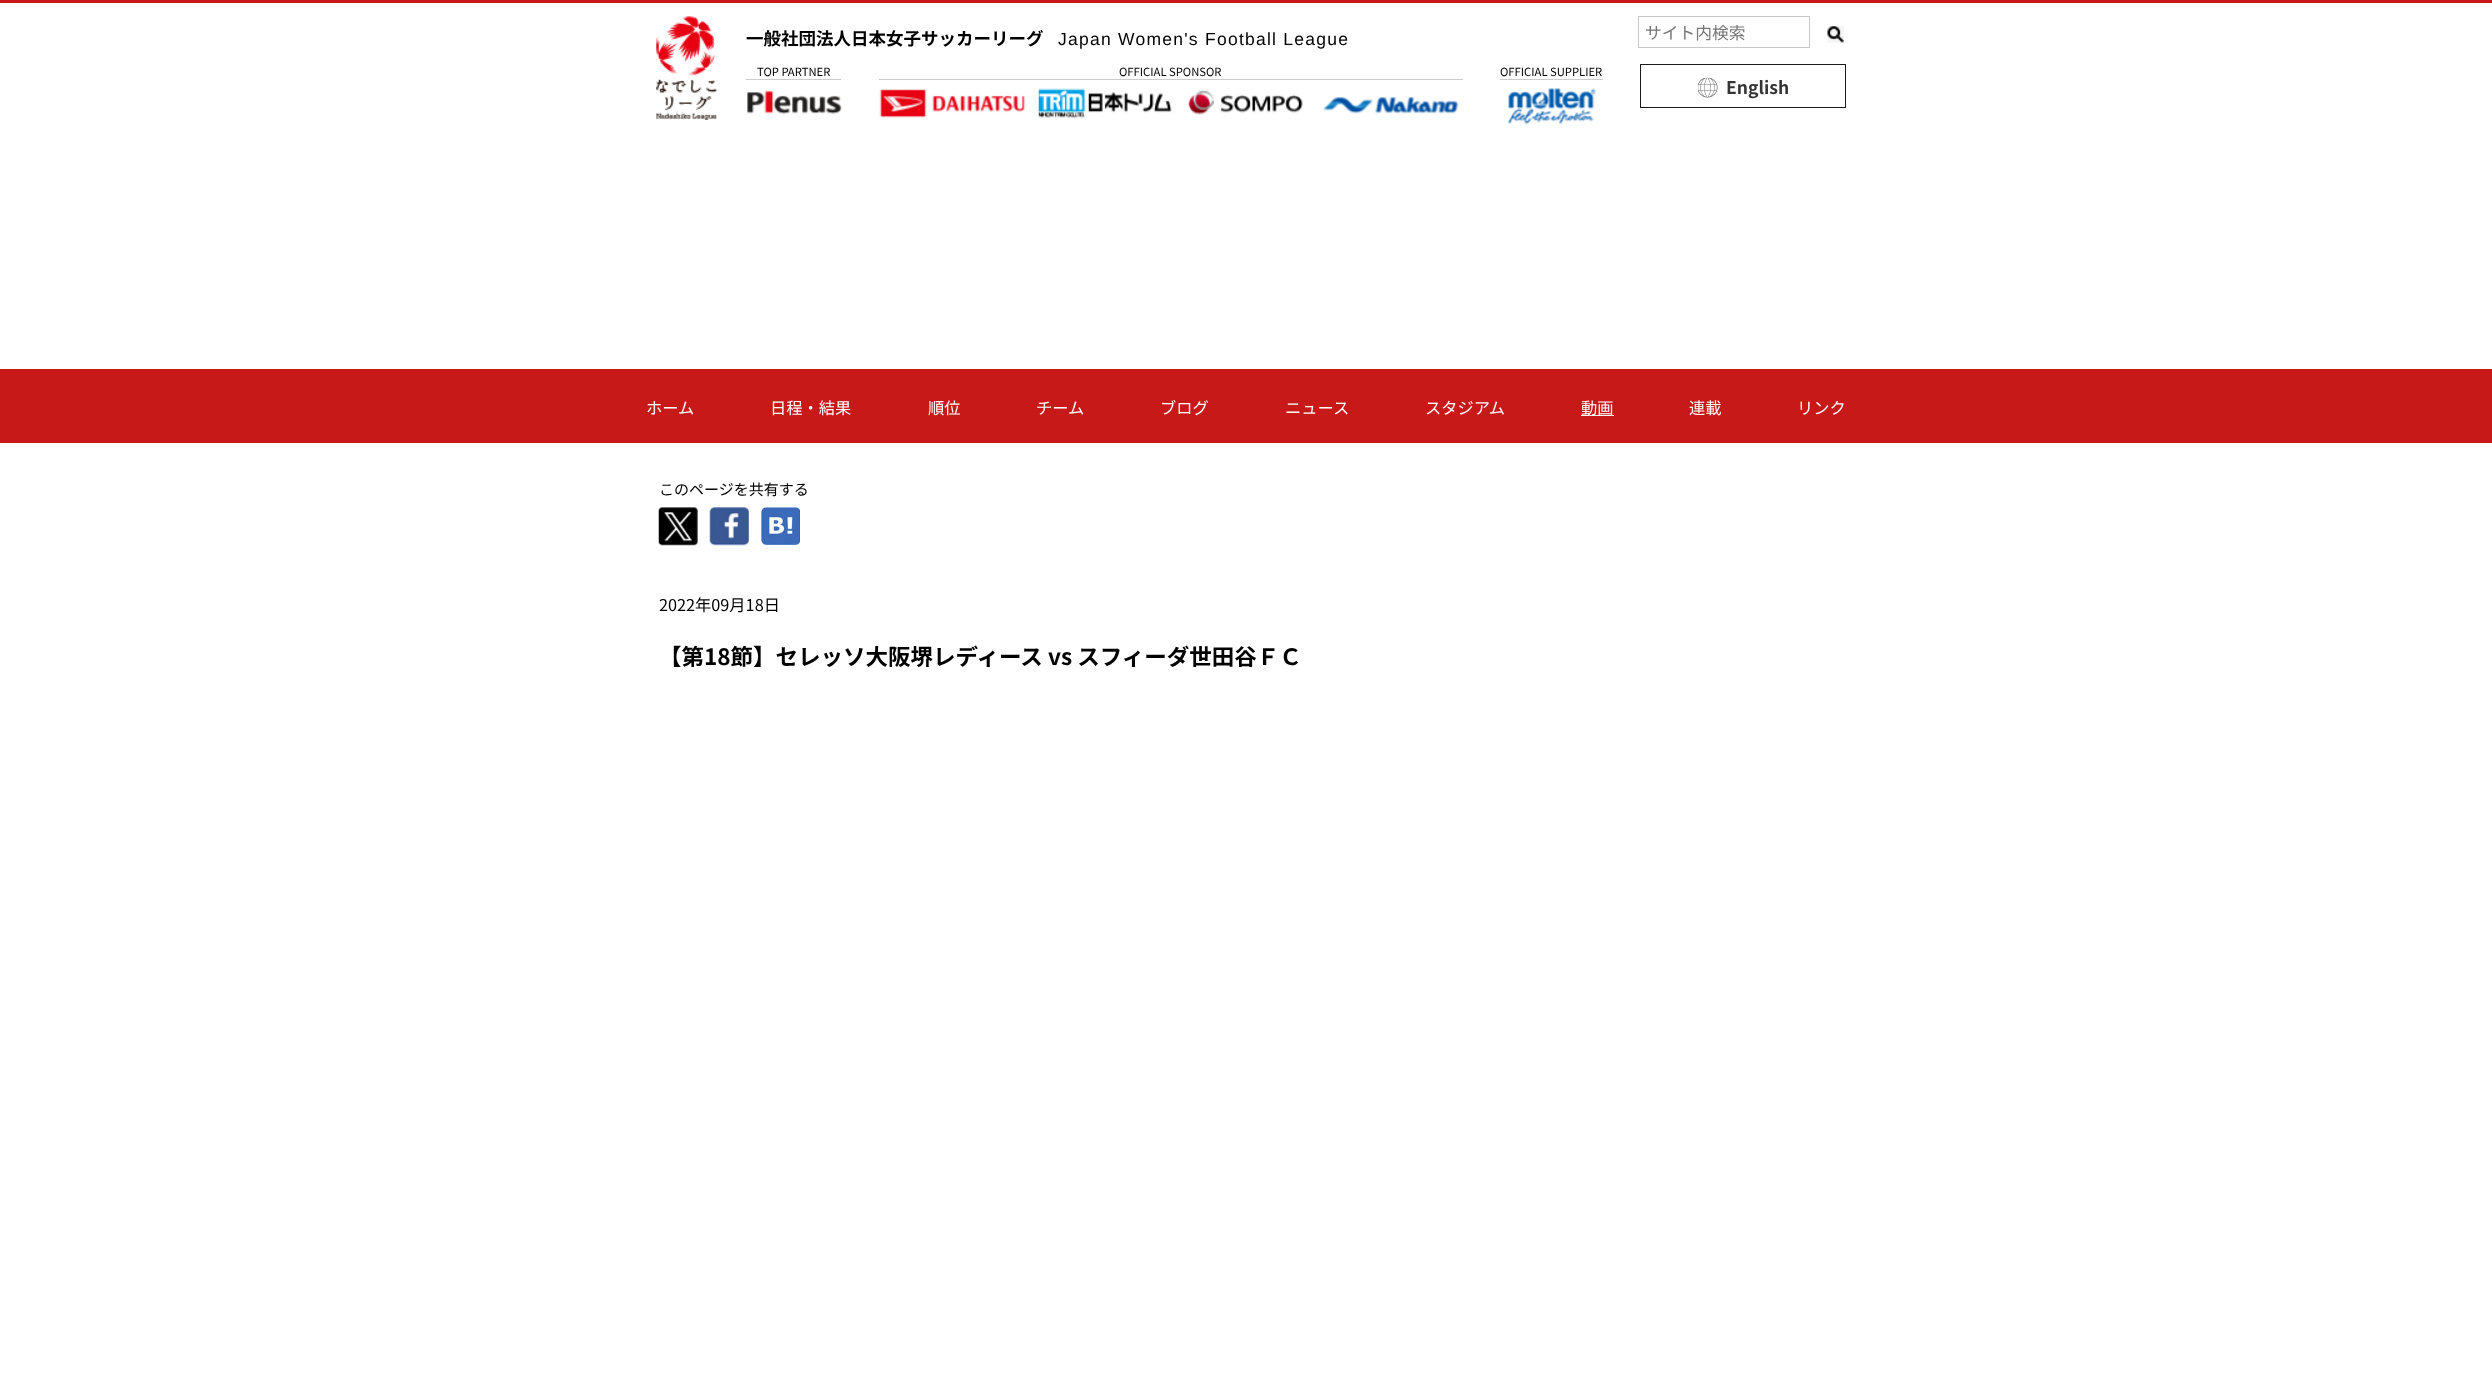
<svg xmlns="http://www.w3.org/2000/svg" width="2492" height="1395">
	<rect width="100%" height="100%" fill="#FFFFFF" />
	<rect x="0" y="0" width="2492" height="3" fill="#C71918" />
	<rect x="1638.5" y="16.5" width="171" height="31" fill="none" stroke="#C9C9C9" />
	<text x="1645" y="39" font-family="Noto Sans JP" font-size="16.75" fill="#757575">サイト内検索</text>
	<image x="1827" y="26" width="17" height="17" href="assets/img1.png" />
	<image x="656" y="16" width="61" height="104" href="assets/img2.png" />
	<text x="746" y="45" font-family="Noto Sans JP" font-size="17.5" font-weight="700" fill="#000000">一般社団法人日本女子サッカーリーグ</text>
	<text x="1058" y="45" font-family="Liberation Sans" font-size="17.5" letter-spacing="1.25" fill="#000000">Japan Women's Football League</text>
	<text x="757" y="76" font-family="Noto Sans JP" font-size="11.25" fill="#000000">TOP PARTNER</text>
	<rect x="746" y="79" width="95" height="1" fill="#CCCCCC" />
	<image x="747" y="90" width="95" height="25" href="assets/img3.png" />
	<text x="1119" y="76" font-family="Noto Sans JP" font-size="11.25" fill="#000000">OFFICIAL SPONSOR</text>
	<rect x="879" y="79" width="584" height="1" fill="#CCCCCC" />
	<image x="879" y="89" width="147" height="29" href="assets/img4.png" />
	<image x="1038" y="88" width="134" height="31" href="assets/img5.png" />
	<image x="1188" y="89" width="115" height="26" href="assets/img6.png" />
	<image x="1323" y="97" width="136" height="17" href="assets/img7.png" />
	<text x="1500" y="76" font-family="Noto Sans JP" font-size="11.25" fill="#000000">OFFICIAL SUPPLIER</text>
	<rect x="1500" y="79" width="103" height="1" fill="#CCCCCC" />
	<image x="1508" y="88" width="88" height="37" href="assets/img8.png" />
	<rect x="1640.5" y="64.5" width="205" height="43" fill="none" stroke="#1A1A1A" />
	<image x="1698" y="78" width="20" height="20" href="assets/img9.png" />
	<text x="1726" y="94" font-family="Noto Sans JP" font-size="17.5" font-weight="700" fill="#333333">English</text>
	<rect x="0" y="369" width="2492" height="74" fill="#C71918" />
	<g font-family="Noto Sans JP" font-size="16.25" fill="#FFFFFF">
		<text x="646" y="414">ホーム</text>
		<text x="770" y="414">日程・結果</text>
		<text x="928" y="414">順位</text>
		<text x="1036" y="414">チーム</text>
		<text x="1160" y="414">ブログ</text>
		<text x="1285" y="414">ニュース</text>
		<text x="1425" y="414">スタジアム</text>
	</g>
	<rect x="1581" y="415" width="33" height="1" fill="#FFFFFF" />
	<g font-family="Noto Sans JP" font-size="16.25" fill="#FFFFFF">
		<text x="1581" y="414">動画</text>
		<text x="1689" y="414">連載</text>
		<text x="1797" y="414">リンク</text>
	</g>
	<text x="659" y="495" font-family="Noto Sans JP" font-size="15" fill="#000000">このページを共有する</text>
	<image x="658" y="507" width="40" height="39" href="assets/img10.png" />
	<image x="709" y="507" width="40" height="39" href="assets/img11.png" />
	<image x="761" y="507" width="39" height="38" href="assets/img12.png" />
	<text x="659" y="611" font-family="Noto Sans JP" font-size="16.25" fill="#000000">2022年09月18日</text>
	<text x="659" y="665" font-family="Noto Sans JP" font-size="22.5" font-weight="700" fill="#000000">【第18節】セレッソ大阪堺レディース vs スフィーダ世田谷ＦＣ</text>
</svg>
